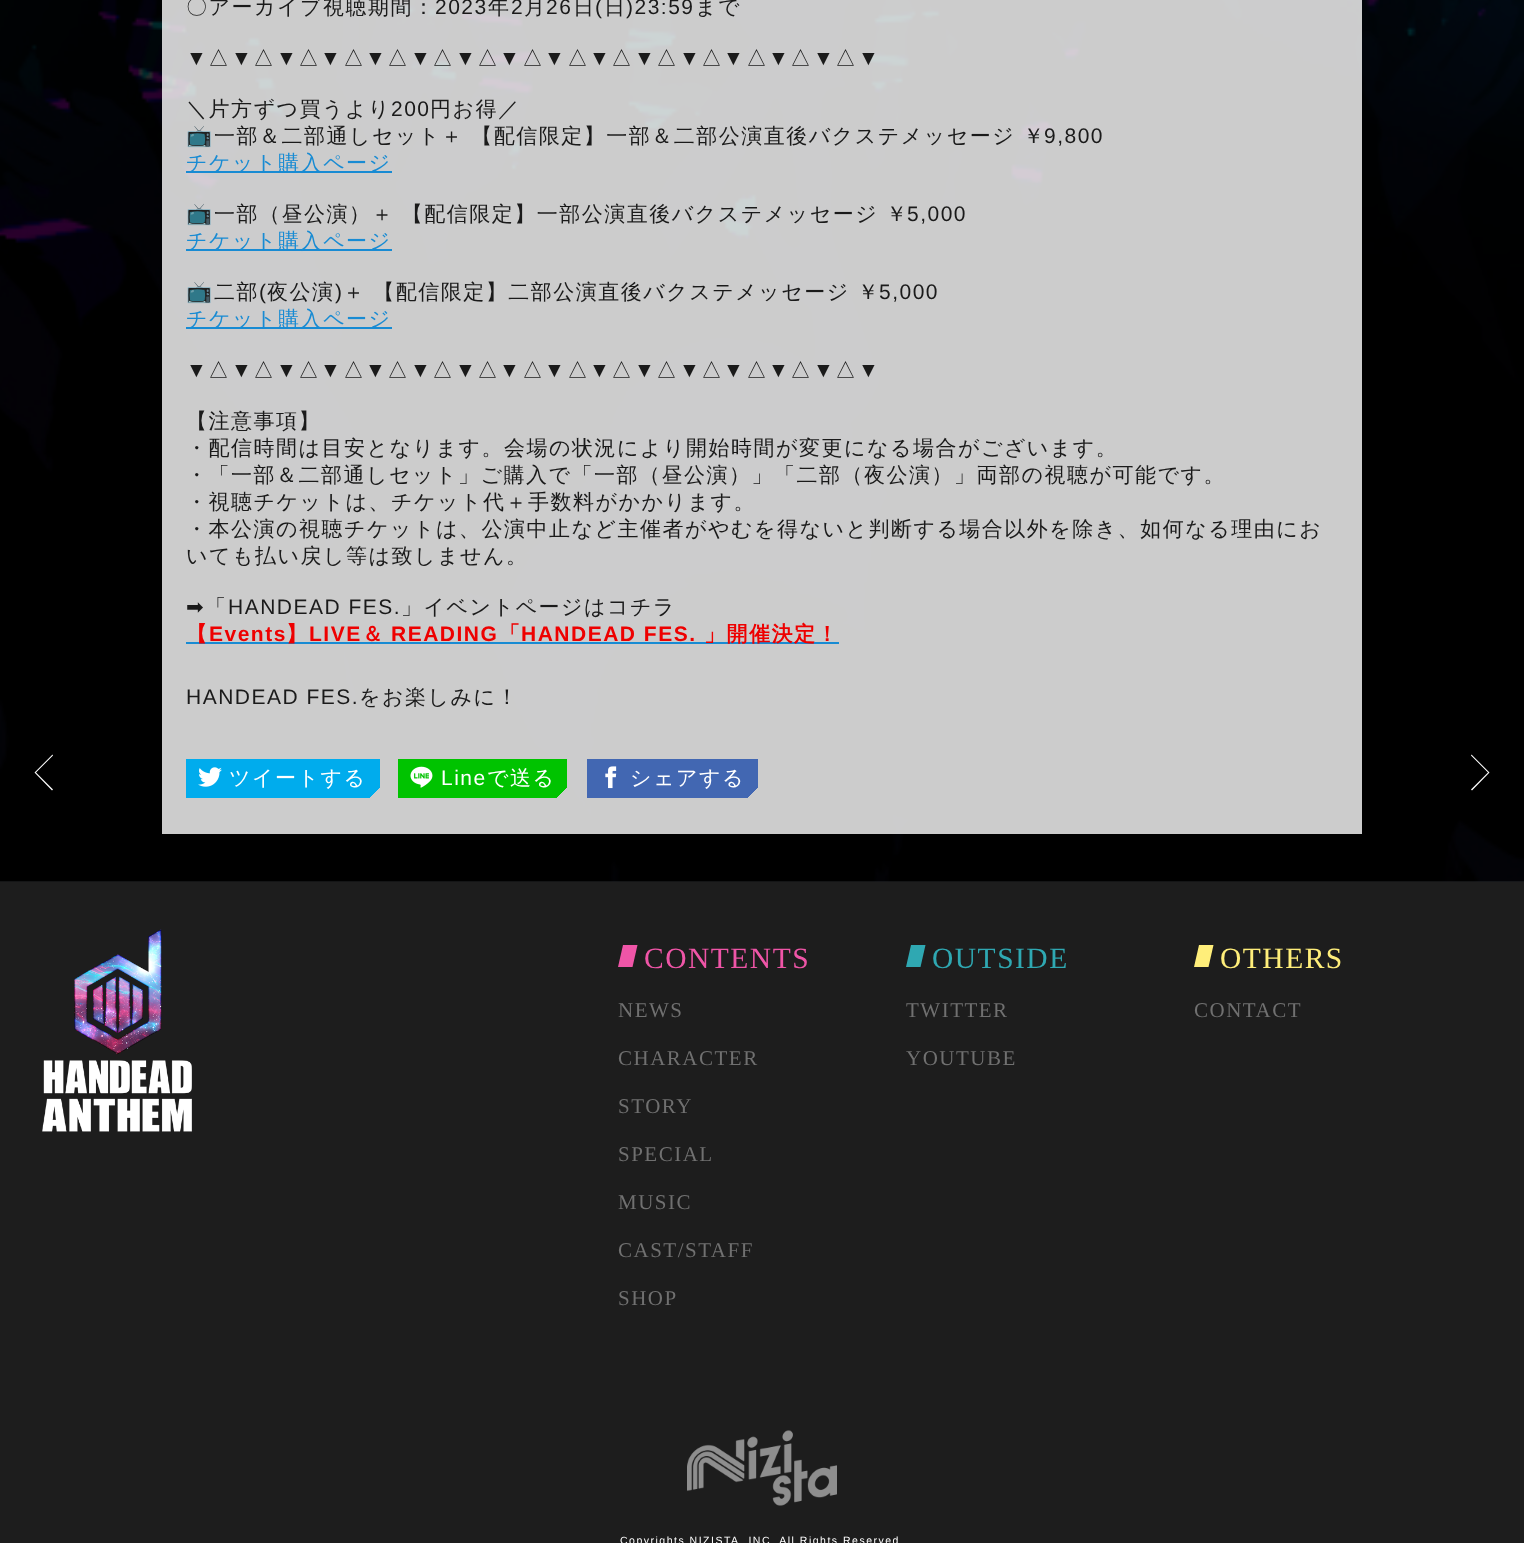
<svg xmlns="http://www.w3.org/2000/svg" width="1524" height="1543">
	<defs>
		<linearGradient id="g1" gradientUnits="userSpaceOnUse" x1="360" y1="818" x2="301" y2="758"><stop offset="0.09" stop-color="#CCCCCC" /><stop offset="0.09" stop-color="#00ACED" /></linearGradient>
		<linearGradient id="g2" gradientUnits="userSpaceOnUse" x1="550" y1="815" x2="497" y2="761"><stop offset="0.1" stop-color="#CCCCCC" /><stop offset="0.1" stop-color="#00C300" /></linearGradient>
		<linearGradient id="g3" gradientUnits="userSpaceOnUse" x1="741" y1="815" x2="687" y2="761"><stop offset="0.1" stop-color="#CCCCCC" /><stop offset="0.1" stop-color="#4267B2" /></linearGradient>
	</defs>
	<rect width="100%" height="100%" fill="#292A2C" />
	<image x="0" y="0" width="1524" height="882" href="assets/img1.png" />
	<path d="M52 790.5L34.5 772.5L52.5 754.5L53 755.5L36 772.5L53 789.5Z" fill="#FFFFFF" />
	<rect x="162" y="0" width="1200" height="834" fill="#FFFFFF" fill-opacity="0.8" />
	<text x="186" y="14" font-family="WenQuanYi Zen Hei" font-size="21" font-weight="500" letter-spacing="1.5" fill="#1A1A1A">〇アーカイブ視聴期間：</text>
	<text x="435" y="14" font-family="Liberation Sans" font-size="21" letter-spacing="1.5" fill="#1A1A1A">2023</text>
	<text x="488" y="14" font-family="WenQuanYi Zen Hei" font-size="21" font-weight="500" letter-spacing="1.5" fill="#1A1A1A">年</text>
	<text x="511" y="14" font-family="Liberation Sans" font-size="21" letter-spacing="1.5" fill="#1A1A1A">2</text>
	<text x="524" y="14" font-family="WenQuanYi Zen Hei" font-size="21" font-weight="500" letter-spacing="1.5" fill="#1A1A1A">月</text>
	<text x="546" y="14" font-family="Liberation Sans" font-size="21" letter-spacing="1.5" fill="#1A1A1A">26</text>
	<text x="573" y="14" font-family="WenQuanYi Zen Hei" font-size="21" font-weight="500" letter-spacing="1.5" fill="#1A1A1A">日</text>
	<text x="595" y="14" font-family="Liberation Sans" font-size="21" letter-spacing="1.5" fill="#1A1A1A">(</text>
	<text x="604" y="14" font-family="WenQuanYi Zen Hei" font-size="21" font-weight="500" letter-spacing="1.5" fill="#1A1A1A">日</text>
	<text x="626" y="14" font-family="Liberation Sans" font-size="21" letter-spacing="1.5" fill="#1A1A1A">)23:59</text>
	<text x="695" y="14" font-family="WenQuanYi Zen Hei" font-size="21" font-weight="500" letter-spacing="1.5" fill="#1A1A1A">まで</text>
	<text x="186" y="65" font-family="Liberation Sans" font-size="21" letter-spacing="1.5" fill="#1A1A1A">▼</text>
	<text x="208" y="65" font-family="WenQuanYi Zen Hei" font-size="21" font-weight="500" letter-spacing="1.5" fill="#1A1A1A">△</text>
	<text x="231" y="65" font-family="Liberation Sans" font-size="21" letter-spacing="1.5" fill="#1A1A1A">▼</text>
	<text x="253" y="65" font-family="WenQuanYi Zen Hei" font-size="21" font-weight="500" letter-spacing="1.5" fill="#1A1A1A">△</text>
	<text x="276" y="65" font-family="Liberation Sans" font-size="21" letter-spacing="1.5" fill="#1A1A1A">▼</text>
	<text x="298" y="65" font-family="WenQuanYi Zen Hei" font-size="21" font-weight="500" letter-spacing="1.5" fill="#1A1A1A">△</text>
	<text x="320" y="65" font-family="Liberation Sans" font-size="21" letter-spacing="1.5" fill="#1A1A1A">▼</text>
	<text x="343" y="65" font-family="WenQuanYi Zen Hei" font-size="21" font-weight="500" letter-spacing="1.5" fill="#1A1A1A">△</text>
	<text x="365" y="65" font-family="Liberation Sans" font-size="21" letter-spacing="1.5" fill="#1A1A1A">▼</text>
	<text x="387" y="65" font-family="WenQuanYi Zen Hei" font-size="21" font-weight="500" letter-spacing="1.5" fill="#1A1A1A">△</text>
	<text x="410" y="65" font-family="Liberation Sans" font-size="21" letter-spacing="1.5" fill="#1A1A1A">▼</text>
	<text x="432" y="65" font-family="WenQuanYi Zen Hei" font-size="21" font-weight="500" letter-spacing="1.5" fill="#1A1A1A">△</text>
	<text x="455" y="65" font-family="Liberation Sans" font-size="21" letter-spacing="1.5" fill="#1A1A1A">▼</text>
	<text x="477" y="65" font-family="WenQuanYi Zen Hei" font-size="21" font-weight="500" letter-spacing="1.5" fill="#1A1A1A">△</text>
	<text x="499" y="65" font-family="Liberation Sans" font-size="21" letter-spacing="1.5" fill="#1A1A1A">▼</text>
	<text x="522" y="65" font-family="WenQuanYi Zen Hei" font-size="21" font-weight="500" letter-spacing="1.5" fill="#1A1A1A">△</text>
	<text x="544" y="65" font-family="Liberation Sans" font-size="21" letter-spacing="1.5" fill="#1A1A1A">▼</text>
	<text x="567" y="65" font-family="WenQuanYi Zen Hei" font-size="21" font-weight="500" letter-spacing="1.5" fill="#1A1A1A">△</text>
	<text x="589" y="65" font-family="Liberation Sans" font-size="21" letter-spacing="1.5" fill="#1A1A1A">▼</text>
	<text x="611" y="65" font-family="WenQuanYi Zen Hei" font-size="21" font-weight="500" letter-spacing="1.5" fill="#1A1A1A">△</text>
	<text x="634" y="65" font-family="Liberation Sans" font-size="21" letter-spacing="1.5" fill="#1A1A1A">▼</text>
	<text x="656" y="65" font-family="WenQuanYi Zen Hei" font-size="21" font-weight="500" letter-spacing="1.5" fill="#1A1A1A">△</text>
	<text x="679" y="65" font-family="Liberation Sans" font-size="21" letter-spacing="1.5" fill="#1A1A1A">▼</text>
	<text x="701" y="65" font-family="WenQuanYi Zen Hei" font-size="21" font-weight="500" letter-spacing="1.5" fill="#1A1A1A">△</text>
	<text x="723" y="65" font-family="Liberation Sans" font-size="21" letter-spacing="1.5" fill="#1A1A1A">▼</text>
	<text x="746" y="65" font-family="WenQuanYi Zen Hei" font-size="21" font-weight="500" letter-spacing="1.5" fill="#1A1A1A">△</text>
	<text x="768" y="65" font-family="Liberation Sans" font-size="21" letter-spacing="1.5" fill="#1A1A1A">▼</text>
	<text x="790" y="65" font-family="WenQuanYi Zen Hei" font-size="21" font-weight="500" letter-spacing="1.5" fill="#1A1A1A">△</text>
	<text x="813" y="65" font-family="Liberation Sans" font-size="21" letter-spacing="1.5" fill="#1A1A1A">▼</text>
	<text x="835" y="65" font-family="WenQuanYi Zen Hei" font-size="21" font-weight="500" letter-spacing="1.5" fill="#1A1A1A">△</text>
	<text x="858" y="65" font-family="Liberation Sans" font-size="21" letter-spacing="1.5" fill="#1A1A1A">▼</text>
	<text x="186" y="116" font-family="WenQuanYi Zen Hei" font-size="21" font-weight="500" letter-spacing="1.5" fill="#1A1A1A">＼片方ずつ買うより</text>
	<text x="391" y="116" font-family="Liberation Sans" font-size="21" letter-spacing="1.5" fill="#1A1A1A">200</text>
	<text x="430" y="116" font-family="WenQuanYi Zen Hei" font-size="21" font-weight="500" letter-spacing="1.5" fill="#1A1A1A">円お得／</text>
	<text x="186" y="143" font-family="Noto Color Emoji" font-size="21" letter-spacing="1.5" fill="#1A1A1A">📺</text>
	<text x="214" y="143" font-family="WenQuanYi Zen Hei" font-size="21" font-weight="500" letter-spacing="1.5" fill="#1A1A1A">一部＆二部通しセット＋ 【配信限定】一部＆二部公演直後バクステメッセージ ￥</text>
	<text x="1044" y="143" font-family="Liberation Sans" font-size="21" letter-spacing="1.5" fill="#1A1A1A">9,800</text>
	<rect x="186" y="171" width="206" height="2" fill="#188BD3" />
	<text x="186" y="170" font-family="WenQuanYi Zen Hei" font-size="21" font-weight="500" letter-spacing="1.5" fill="#188BD3">チケット購入ページ</text>
	<text x="186" y="221" font-family="Noto Color Emoji" font-size="21" letter-spacing="1.5" fill="#1A1A1A">📺</text>
	<text x="214" y="221" font-family="WenQuanYi Zen Hei" font-size="21" font-weight="500" letter-spacing="1.5" fill="#1A1A1A">一部（昼公演）＋ 【配信限定】一部公演直後バクステメッセージ ￥</text>
	<text x="907" y="221" font-family="Liberation Sans" font-size="21" letter-spacing="1.5" fill="#1A1A1A">5,000</text>
	<rect x="186" y="249" width="206" height="2" fill="#188BD3" />
	<text x="186" y="248" font-family="WenQuanYi Zen Hei" font-size="21" font-weight="500" letter-spacing="1.5" fill="#188BD3">チケット購入ページ</text>
	<text x="186" y="299" font-family="Noto Color Emoji" font-size="21" letter-spacing="1.5" fill="#1A1A1A">📺</text>
	<text x="214" y="299" font-family="WenQuanYi Zen Hei" font-size="21" font-weight="500" letter-spacing="1.5" fill="#1A1A1A">二部</text>
	<text x="259" y="299" font-family="Liberation Sans" font-size="21" letter-spacing="1.5" fill="#1A1A1A">(</text>
	<text x="267" y="299" font-family="WenQuanYi Zen Hei" font-size="21" font-weight="500" letter-spacing="1.5" fill="#1A1A1A">夜公演</text>
	<text x="335" y="299" font-family="Liberation Sans" font-size="21" letter-spacing="1.5" fill="#1A1A1A">)</text>
	<text x="343" y="299" font-family="WenQuanYi Zen Hei" font-size="21" font-weight="500" letter-spacing="1.5" fill="#1A1A1A">＋ 【配信限定】二部公演直後バクステメッセージ ￥</text>
	<text x="879" y="299" font-family="Liberation Sans" font-size="21" letter-spacing="1.5" fill="#1A1A1A">5,000</text>
	<rect x="186" y="327" width="206" height="2" fill="#188BD3" />
	<text x="186" y="326" font-family="WenQuanYi Zen Hei" font-size="21" font-weight="500" letter-spacing="1.5" fill="#188BD3">チケット購入ページ</text>
	<text x="186" y="377" font-family="Liberation Sans" font-size="21" letter-spacing="1.5" fill="#1A1A1A">▼</text>
	<text x="208" y="377" font-family="WenQuanYi Zen Hei" font-size="21" font-weight="500" letter-spacing="1.5" fill="#1A1A1A">△</text>
	<text x="231" y="377" font-family="Liberation Sans" font-size="21" letter-spacing="1.5" fill="#1A1A1A">▼</text>
	<text x="253" y="377" font-family="WenQuanYi Zen Hei" font-size="21" font-weight="500" letter-spacing="1.5" fill="#1A1A1A">△</text>
	<text x="276" y="377" font-family="Liberation Sans" font-size="21" letter-spacing="1.5" fill="#1A1A1A">▼</text>
	<text x="298" y="377" font-family="WenQuanYi Zen Hei" font-size="21" font-weight="500" letter-spacing="1.5" fill="#1A1A1A">△</text>
	<text x="320" y="377" font-family="Liberation Sans" font-size="21" letter-spacing="1.5" fill="#1A1A1A">▼</text>
	<text x="343" y="377" font-family="WenQuanYi Zen Hei" font-size="21" font-weight="500" letter-spacing="1.5" fill="#1A1A1A">△</text>
	<text x="365" y="377" font-family="Liberation Sans" font-size="21" letter-spacing="1.5" fill="#1A1A1A">▼</text>
	<text x="387" y="377" font-family="WenQuanYi Zen Hei" font-size="21" font-weight="500" letter-spacing="1.5" fill="#1A1A1A">△</text>
	<text x="410" y="377" font-family="Liberation Sans" font-size="21" letter-spacing="1.5" fill="#1A1A1A">▼</text>
	<text x="432" y="377" font-family="WenQuanYi Zen Hei" font-size="21" font-weight="500" letter-spacing="1.5" fill="#1A1A1A">△</text>
	<text x="455" y="377" font-family="Liberation Sans" font-size="21" letter-spacing="1.5" fill="#1A1A1A">▼</text>
	<text x="477" y="377" font-family="WenQuanYi Zen Hei" font-size="21" font-weight="500" letter-spacing="1.5" fill="#1A1A1A">△</text>
	<text x="499" y="377" font-family="Liberation Sans" font-size="21" letter-spacing="1.5" fill="#1A1A1A">▼</text>
	<text x="522" y="377" font-family="WenQuanYi Zen Hei" font-size="21" font-weight="500" letter-spacing="1.5" fill="#1A1A1A">△</text>
	<text x="544" y="377" font-family="Liberation Sans" font-size="21" letter-spacing="1.5" fill="#1A1A1A">▼</text>
	<text x="567" y="377" font-family="WenQuanYi Zen Hei" font-size="21" font-weight="500" letter-spacing="1.5" fill="#1A1A1A">△</text>
	<text x="589" y="377" font-family="Liberation Sans" font-size="21" letter-spacing="1.5" fill="#1A1A1A">▼</text>
	<text x="611" y="377" font-family="WenQuanYi Zen Hei" font-size="21" font-weight="500" letter-spacing="1.5" fill="#1A1A1A">△</text>
	<text x="634" y="377" font-family="Liberation Sans" font-size="21" letter-spacing="1.5" fill="#1A1A1A">▼</text>
	<text x="656" y="377" font-family="WenQuanYi Zen Hei" font-size="21" font-weight="500" letter-spacing="1.5" fill="#1A1A1A">△</text>
	<text x="679" y="377" font-family="Liberation Sans" font-size="21" letter-spacing="1.5" fill="#1A1A1A">▼</text>
	<text x="701" y="377" font-family="WenQuanYi Zen Hei" font-size="21" font-weight="500" letter-spacing="1.5" fill="#1A1A1A">△</text>
	<text x="723" y="377" font-family="Liberation Sans" font-size="21" letter-spacing="1.5" fill="#1A1A1A">▼</text>
	<text x="746" y="377" font-family="WenQuanYi Zen Hei" font-size="21" font-weight="500" letter-spacing="1.5" fill="#1A1A1A">△</text>
	<text x="768" y="377" font-family="Liberation Sans" font-size="21" letter-spacing="1.5" fill="#1A1A1A">▼</text>
	<text x="790" y="377" font-family="WenQuanYi Zen Hei" font-size="21" font-weight="500" letter-spacing="1.5" fill="#1A1A1A">△</text>
	<text x="813" y="377" font-family="Liberation Sans" font-size="21" letter-spacing="1.5" fill="#1A1A1A">▼</text>
	<text x="835" y="377" font-family="WenQuanYi Zen Hei" font-size="21" font-weight="500" letter-spacing="1.5" fill="#1A1A1A">△</text>
	<text x="858" y="377" font-family="Liberation Sans" font-size="21" letter-spacing="1.5" fill="#1A1A1A">▼</text>
	<g font-family="WenQuanYi Zen Hei" font-size="21" font-weight="500" letter-spacing="1.5" fill="#1A1A1A">
		<text x="186" y="428">【注意事項】</text>
		<text x="186" y="455">・配信時間は目安となります。会場の状況により開始時間が変更になる場合がございます。</text>
		<text x="186" y="482">・「一部＆二部通しセット」ご購入で「一部（昼公演）」「二部（夜公演）」両部の視聴が可能です。</text>
		<text x="186" y="509">・視聴チケットは、チケット代＋手数料がかかります。</text>
		<text x="186" y="536">・本公演の視聴チケットは、公演中止など主催者がやむを得ないと判断する場合以外を除き、如何なる理由にお</text>
		<text x="186" y="563">いても払い戻し等は致しません。</text>
	</g>
	<text x="186" y="614" font-family="DejaVu Sans" font-size="21" letter-spacing="1.5" fill="#1A1A1A">➡</text>
	<text x="205" y="614" font-family="WenQuanYi Zen Hei" font-size="21" font-weight="500" letter-spacing="1.5" fill="#1A1A1A">「</text>
	<text x="228" y="614" font-family="Liberation Sans" font-size="21" letter-spacing="1.5" fill="#1A1A1A">HANDEAD FES.</text>
	<text x="401" y="614" font-family="WenQuanYi Zen Hei" font-size="21" font-weight="500" letter-spacing="1.5" fill="#1A1A1A">」イベントページはコチラ</text>
	<rect x="186" y="642" width="653" height="2" fill="#188BD3" />
	<text x="186" y="641" font-family="WenQuanYi Zen Hei" font-size="21" font-weight="700" letter-spacing="1.5" fill="#EE0000">【</text>
	<text x="209" y="641" font-family="Liberation Sans" font-size="21" font-weight="700" letter-spacing="1.5" fill="#EE0000">Events</text>
	<text x="286" y="641" font-family="WenQuanYi Zen Hei" font-size="21" font-weight="700" letter-spacing="1.5" fill="#EE0000">】</text>
	<text x="309" y="641" font-family="Liberation Sans" font-size="21" font-weight="700" letter-spacing="1.5" fill="#EE0000">LIVE</text>
	<text x="362" y="641" font-family="WenQuanYi Zen Hei" font-size="21" font-weight="700" letter-spacing="1.5" fill="#EE0000">＆</text>
	<text x="391" y="641" font-family="Liberation Sans" font-size="21" font-weight="700" letter-spacing="1.5" fill="#EE0000">READING</text>
	<text x="499" y="641" font-family="WenQuanYi Zen Hei" font-size="21" font-weight="700" letter-spacing="1.5" fill="#EE0000">「</text>
	<text x="521" y="641" font-family="Liberation Sans" font-size="21" font-weight="700" letter-spacing="1.5" fill="#EE0000">HANDEAD FES.</text>
	<text x="704" y="641" font-family="WenQuanYi Zen Hei" font-size="21" font-weight="700" letter-spacing="1.5" fill="#EE0000">」開催決定！</text>
	<text x="186" y="704" font-family="Liberation Sans" font-size="21" letter-spacing="1.5" fill="#1A1A1A">HANDEAD FES.</text>
	<text x="359" y="704" font-family="WenQuanYi Zen Hei" font-size="21" font-weight="500" letter-spacing="1.5" fill="#1A1A1A">をお楽しみに！</text>
	<rect x="285" y="779" width="95" height="19" fill="url(#g1)" />
	<rect x="186" y="759" width="194" height="20" fill="#00ACED" />
	<rect x="186" y="779" width="99" height="19" fill="#00ACED" />
	<image x="198" y="767" width="24" height="20" href="assets/img2.png" />
	<text x="229" y="785" font-family="WenQuanYi Zen Hei" font-size="21" font-weight="500" letter-spacing="1.5" fill="#FFFFFF">ツイートする</text>
	<rect x="485" y="779" width="82" height="19" fill="url(#g2)" />
	<rect x="398" y="759" width="169" height="20" fill="#00C300" />
	<rect x="398" y="779" width="87" height="19" fill="#00C300" />
	<image x="410" y="766" width="23" height="22" href="assets/img3.png" />
	<text x="441" y="785" font-family="Liberation Sans" font-size="21" letter-spacing="1.5" fill="#FFFFFF">Line</text>
	<text x="487" y="785" font-family="WenQuanYi Zen Hei" font-size="21" font-weight="500" letter-spacing="1.5" fill="#FFFFFF">で送る</text>
	<rect x="674" y="779" width="84" height="19" fill="url(#g3)" />
	<rect x="587" y="759" width="171" height="20" fill="#4267B2" />
	<rect x="587" y="779" width="87" height="19" fill="#4267B2" />
	<image x="605" y="766" width="12" height="23" href="assets/img4.png" />
	<text x="630" y="785" font-family="WenQuanYi Zen Hei" font-size="21" font-weight="500" letter-spacing="1.5" fill="#FFFFFF">シェアする</text>
	<path d="M1472 790.5L1489.5 772.5L1471.5 754.5L1471 755.5L1488 772.5L1471 789.5Z" fill="#FFFFFF" />
	<rect x="0" y="882" width="1524" height="661" fill="#1D1D1D" />
	<image x="42" y="929" width="150" height="203" href="assets/img5.png" />
	<path d="M623 945H637.5L632.5 967H618Z" fill="#EF55A7" />
	<text x="644" y="968" font-family="Liberation Serif" font-size="29.5" letter-spacing="1.5" fill="#EF55A7">CONTENTS</text>
	<g font-family="Liberation Serif" font-size="21" letter-spacing="1.5" fill="#707070">
		<text x="618" y="1017">NEWS</text>
		<text x="618" y="1065">CHARACTER</text>
		<text x="618" y="1113">STORY</text>
		<text x="618" y="1161">SPECIAL</text>
		<text x="618" y="1209">MUSIC</text>
		<text x="618" y="1257">CAST/STAFF</text>
		<text x="618" y="1305">SHOP</text>
	</g>
	<path d="M911 945H925.5L920.5 967H906Z" fill="#2FA8B2" />
	<text x="932" y="968" font-family="Liberation Serif" font-size="29.5" letter-spacing="1.5" fill="#2FA8B2">OUTSIDE</text>
	<g font-family="Liberation Serif" font-size="21" letter-spacing="1.5" fill="#707070">
		<text x="906" y="1017">TWITTER</text>
		<text x="906" y="1065">YOUTUBE</text>
	</g>
	<path d="M1199 945H1213.5L1208.5 967H1194Z" fill="#FFEE7A" />
	<text x="1220" y="968" font-family="Liberation Serif" font-size="29.5" letter-spacing="1.5" fill="#FFEE7A">OTHERS</text>
	<text x="1194" y="1017" font-family="Liberation Serif" font-size="21" letter-spacing="1.5" fill="#707070">CONTACT</text>
	<image x="687" y="1430" width="150" height="76" href="assets/img6.png" />
	<text x="620" y="1544" font-family="Liberation Sans" font-size="10.5" letter-spacing="1.5" fill="#FFFFFF">Copyrights NIZISTA, INC. All Rights Reserved.</text>
</svg>
